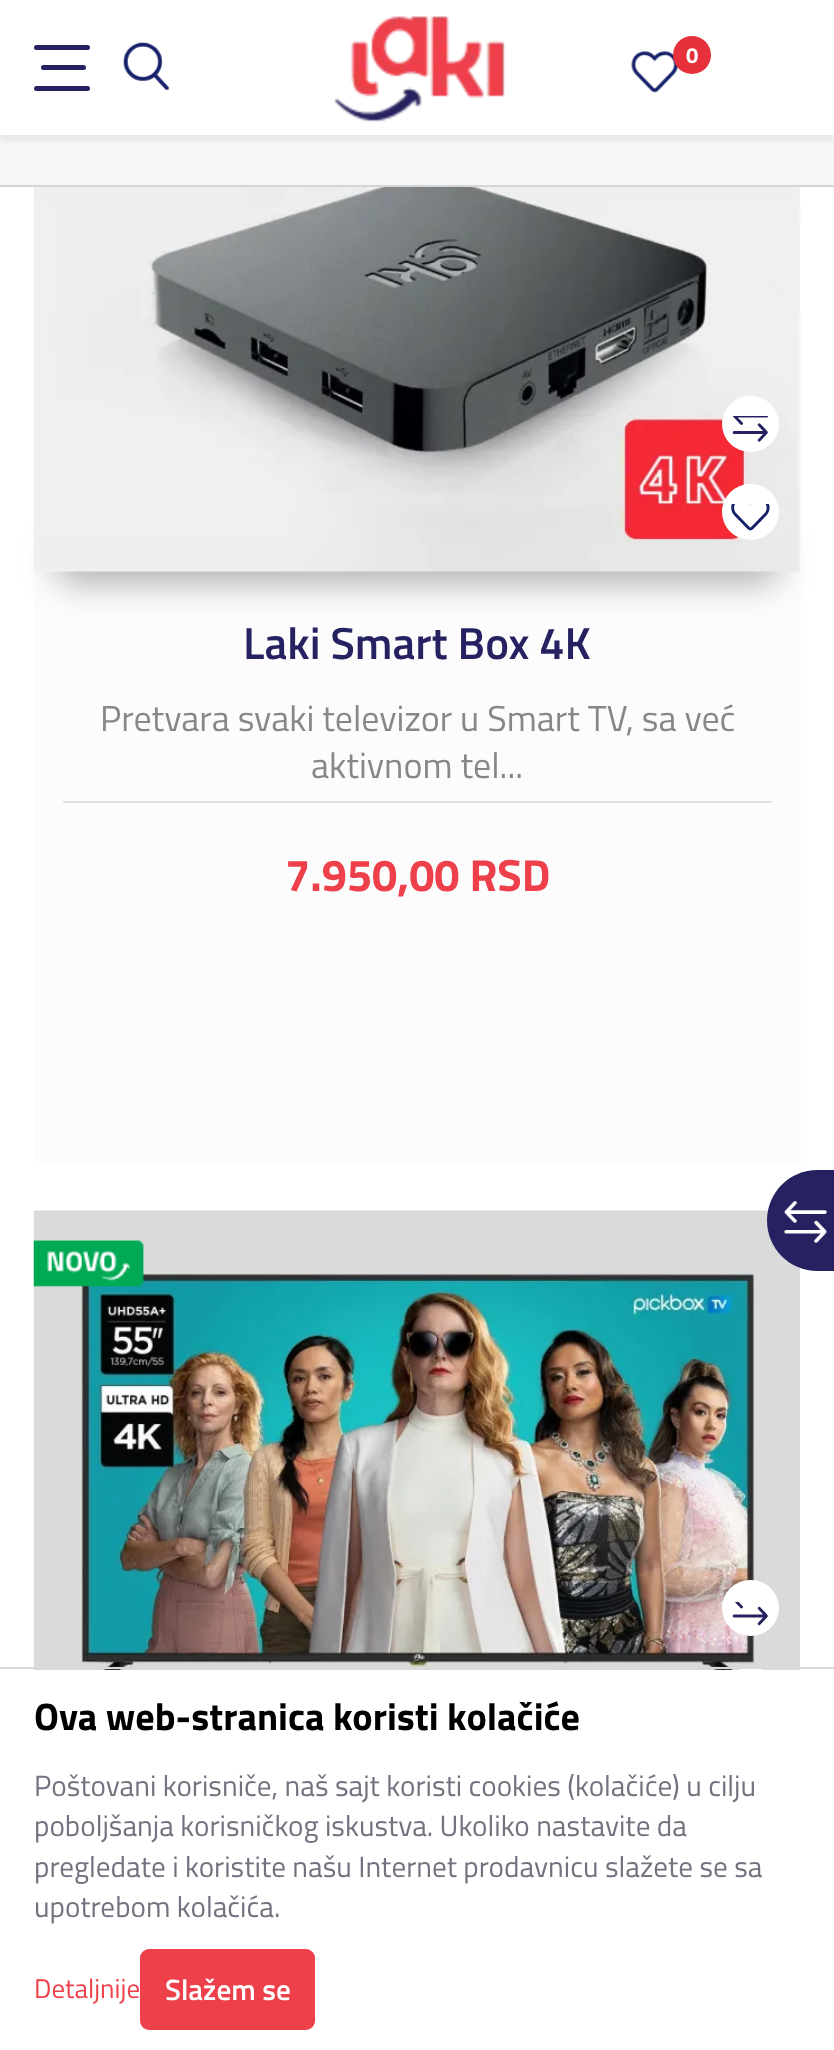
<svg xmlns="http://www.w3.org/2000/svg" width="834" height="2050">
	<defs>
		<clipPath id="clip1"><rect x="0" y="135" width="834" height="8" /></clipPath>
	</defs>
	<rect width="100%" height="100%" fill="#FFFFFF" />
	<rect x="0" y="135" width="834" height="50" fill="#F6F6F6" />
	<g clip-path="url(#clip1)">
		<rect x="0" y="7" width="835" height="135" fill="#000000" fill-opacity="0.05" filter="blur(3.5px)" />
	</g>
	<rect x="34" y="45" width="56" height="5" rx="2.5" fill="#262261" />
	<rect x="41" y="65" width="45" height="5" rx="2.5" fill="#262261" />
	<rect x="34" y="86" width="56" height="5" rx="2.5" fill="#262261" />
	<image x="123" y="42" width="46" height="48" href="assets/img1.png" />
	<image x="334" y="16" width="171" height="106" href="assets/img2.png" />
	<image x="631" y="51" width="47" height="42" href="assets/img3.png" />
	<circle cx="692" cy="55" r="19" fill="#E6303B" />
	<text x="686" y="63" font-family="Titillium Web" font-size="22" font-weight="700" fill="#FFFFFF">0</text>
	<rect x="0" y="185" width="834" height="2" fill="#D5D5D5" />
	<rect x="34" y="572" width="767" height="594" fill="#FCFCFC" />
	<rect x="54" y="538" width="727" height="45" rx="22.5" fill="#000000" fill-opacity="0.3" filter="blur(17px)" />
	<image x="33" y="187" width="768" height="385" href="assets/img4.png" />
	<rect x="722" y="396" width="57" height="56" rx="28" fill="#FFFFFF" />
	<image x="732" y="416" width="36" height="26" href="assets/img5.png" />
	<rect x="722" y="484" width="57" height="56" rx="28" fill="#FFFFFF" />
	<image x="731" y="504" width="39" height="27" href="assets/img6.png" />
	<text x="243" y="659" font-family="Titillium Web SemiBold" font-size="45" font-weight="600" fill="#262261">Laki Smart Box 4K</text>
	<rect x="63" y="801" width="709" height="2" fill="#E2E2E2" />
	<g font-family="Titillium Web" font-size="36" fill="#878787">
		<text x="100" y="731">Pretvara svaki televizor u Smart TV, sa već</text>
		<text x="311" y="778">aktivnom tel...</text>
	</g>
	<text x="285" y="891" font-family="Titillium Web" font-size="45" font-weight="700" fill="#EE404A">7.950,00 RSD</text>
	<image x="33" y="1210" width="768" height="460" href="assets/img7.png" />
	<image x="33" y="1240" width="111" height="47" href="assets/img8.png" />
	<rect x="722" y="1580" width="57" height="56" rx="28" fill="#FFFFFF" />
	<image x="732" y="1602" width="36" height="24" href="assets/img9.png" />
	<circle cx="750.5" cy="1695.5" r="28.5" fill="#FFFFFF" />
	<path d="M817.5 1170H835V1271H817.5C789.5 1271 767 1248.5 767 1220.5C767 1192.5 789.5 1170 817.5 1170Z" fill="#262261" />
	<image x="783" y="1201" width="44" height="42" href="assets/img10.png" />
	<rect x="-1" y="1668" width="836" height="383" fill="none" stroke="#D9D9D9" stroke-width="2" />
	<text x="34" y="1730" font-family="Titillium Web" font-size="38.25" font-weight="700" fill="#000000">Ova web-stranica koristi kolačiće</text>
	<g font-family="Titillium Web" font-size="29.25" fill="#73727F">
		<text x="34" y="1796">Poštovani korisniče, naš sajt koristi cookies (kolačiće) u cilju</text>
		<text x="34" y="1836">poboljšanja korisničkog iskustva. Ukoliko nastavite da</text>
		<text x="34" y="1877">pregledate i koristite našu Internet prodavnicu slažete se sa</text>
		<text x="34" y="1917">upotrebom kolačića.</text>
	</g>
	<text x="34" y="1998" font-family="Titillium Web" font-size="27" fill="#EE404A">Detaljnije</text>
	<rect x="141" y="1950" width="173" height="79" rx="8" fill="#EE404A" stroke="#EE404A" stroke-width="2" />
	<text x="165" y="2000" font-family="Titillium Web SemiBold" font-size="29.25" font-weight="600" fill="#FFFFFF">Slažem se</text>
</svg>
